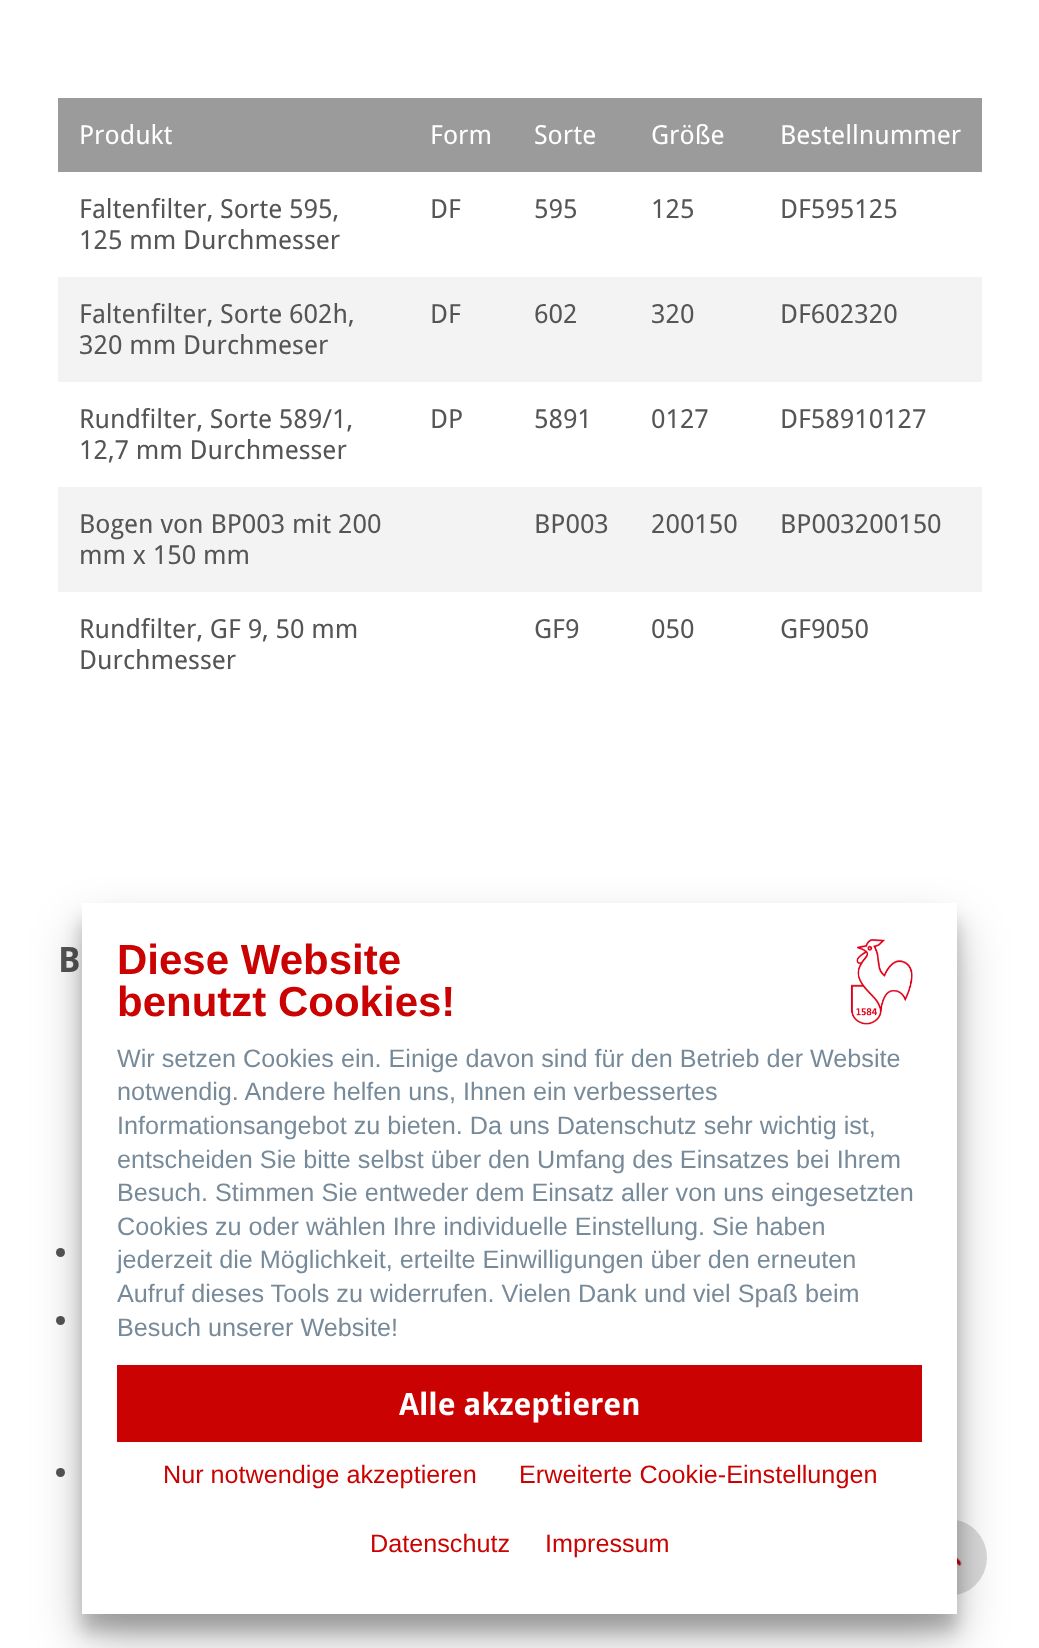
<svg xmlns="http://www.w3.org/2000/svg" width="1039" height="1648">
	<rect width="100%" height="100%" fill="#FFFFFF" />
	<rect x="58" y="98" width="924" height="74" fill="#9B9B9B" />
	<g font-family="Droid Sans" font-size="26.25" fill="#FFFFFF">
		<text x="79" y="144">Produkt</text>
		<text x="430" y="144">Form</text>
		<text x="534" y="144">Sorte</text>
		<text x="651" y="144">Größe</text>
		<text x="780" y="144">Bestellnummer</text>
	</g>
	<g font-family="Droid Sans" font-size="26.25" fill="#555555">
		<text x="79" y="218">Faltenfilter, Sorte 595,</text>
		<text x="79" y="249">125 mm Durchmesser</text>
		<text x="430" y="218">DF</text>
		<text x="534" y="218">595</text>
		<text x="651" y="218">125</text>
		<text x="780" y="218">DF595125</text>
	</g>
	<rect x="58" y="277" width="924" height="105" fill="#F3F3F3" />
	<g font-family="Droid Sans" font-size="26.25" fill="#555555">
		<text x="79" y="323">Faltenfilter, Sorte 602h,</text>
		<text x="79" y="354">320 mm Durchmeser</text>
		<text x="430" y="323">DF</text>
		<text x="534" y="323">602</text>
		<text x="651" y="323">320</text>
		<text x="780" y="323">DF602320</text>
		<text x="79" y="428">Rundfilter, Sorte 589/1,</text>
		<text x="79" y="459">12,7 mm Durchmesser</text>
		<text x="430" y="428">DP</text>
		<text x="534" y="428">5891</text>
		<text x="651" y="428">0127</text>
		<text x="780" y="428">DF58910127</text>
	</g>
	<rect x="58" y="487" width="924" height="105" fill="#F3F3F3" />
	<g font-family="Droid Sans" font-size="26.25" fill="#555555">
		<text x="79" y="533">Bogen von BP003 mit 200</text>
		<text x="79" y="564">mm x 150 mm</text>
		<text x="534" y="533">BP003</text>
		<text x="651" y="533">200150</text>
		<text x="780" y="533">BP003200150</text>
		<text x="79" y="638">Rundfilter, GF 9, 50 mm</text>
		<text x="79" y="669">Durchmesser</text>
		<text x="534" y="638">GF9</text>
		<text x="651" y="638">050</text>
		<text x="780" y="638">GF9050</text>
	</g>
	<text x="58" y="972" font-family="Droid Sans" font-size="35" font-weight="700" fill="#555555">B</text>
	<circle cx="60.5" cy="1252.5" r="4.5" fill="#555555" />
	<circle cx="60.5" cy="1320.5" r="4.5" fill="#555555" />
	<circle cx="60.5" cy="1472.5" r="4.5" fill="#555555" />
	<circle cx="948.5" cy="1557.5" r="38.5" fill="#DADADA" />
	<image x="957" y="1557" width="5" height="10" href="assets/img2.png" />
	<rect x="82" y="921" width="875" height="710" fill="#000000" fill-opacity="0.22" filter="blur(9px)" />
	<rect x="82" y="928" width="875" height="710" fill="#000000" fill-opacity="0.25" filter="blur(24.5px)" />
	<rect x="82" y="903" width="875" height="711" fill="#FFFFFF" />
	<g font-family="Liberation Sans" font-size="42" font-weight="700" fill="#CA0202">
		<text x="117" y="974">Diese Website</text>
		<text x="117" y="1016">benutzt Cookies!</text>
	</g>
	<image x="850" y="939" width="63" height="86" href="assets/img1.png" />
	<g font-family="Liberation Sans" font-size="25.2" fill="#778A99">
		<text x="117" y="1067">Wir setzen Cookies ein. Einige davon sind für den Betrieb der Website</text>
		<text x="117" y="1100">notwendig. Andere helfen uns, Ihnen ein verbessertes</text>
		<text x="117" y="1134">Informationsangebot zu bieten. Da uns Datenschutz sehr wichtig ist,</text>
		<text x="117" y="1168">entscheiden Sie bitte selbst über den Umfang des Einsatzes bei Ihrem</text>
		<text x="117" y="1201">Besuch. Stimmen Sie entweder dem Einsatz aller von uns</text>
		<text x="771" y="1201">eingesetzten</text>
		<text x="117" y="1235">Cookies zu oder wählen Ihre individuelle Einstellung. Sie haben</text>
		<text x="117" y="1268">jederzeit die Möglichkeit, erteilte Einwilligungen über den erneuten</text>
		<text x="117" y="1302">Aufruf dieses Tools zu widerrufen. Vielen Dank und viel Spaß beim</text>
		<text x="117" y="1336">Besuch unserer Website!</text>
	</g>
	<rect x="117" y="1365" width="805" height="77" fill="#CA0202" />
	<text x="399" y="1415" font-family="Droid Sans" font-size="30.75" font-weight="700" fill="#FFFFFF">Alle akzeptieren</text>
	<g font-family="Liberation Sans" font-size="25.2" fill="#CA0202">
		<text x="163" y="1483">Nur notwendige akzeptieren</text>
		<text x="519" y="1483">Erweiterte Cookie-Einstellungen</text>
		<text x="370" y="1552">Datenschutz</text>
		<text x="545" y="1552">Impressum</text>
	</g>
</svg>
